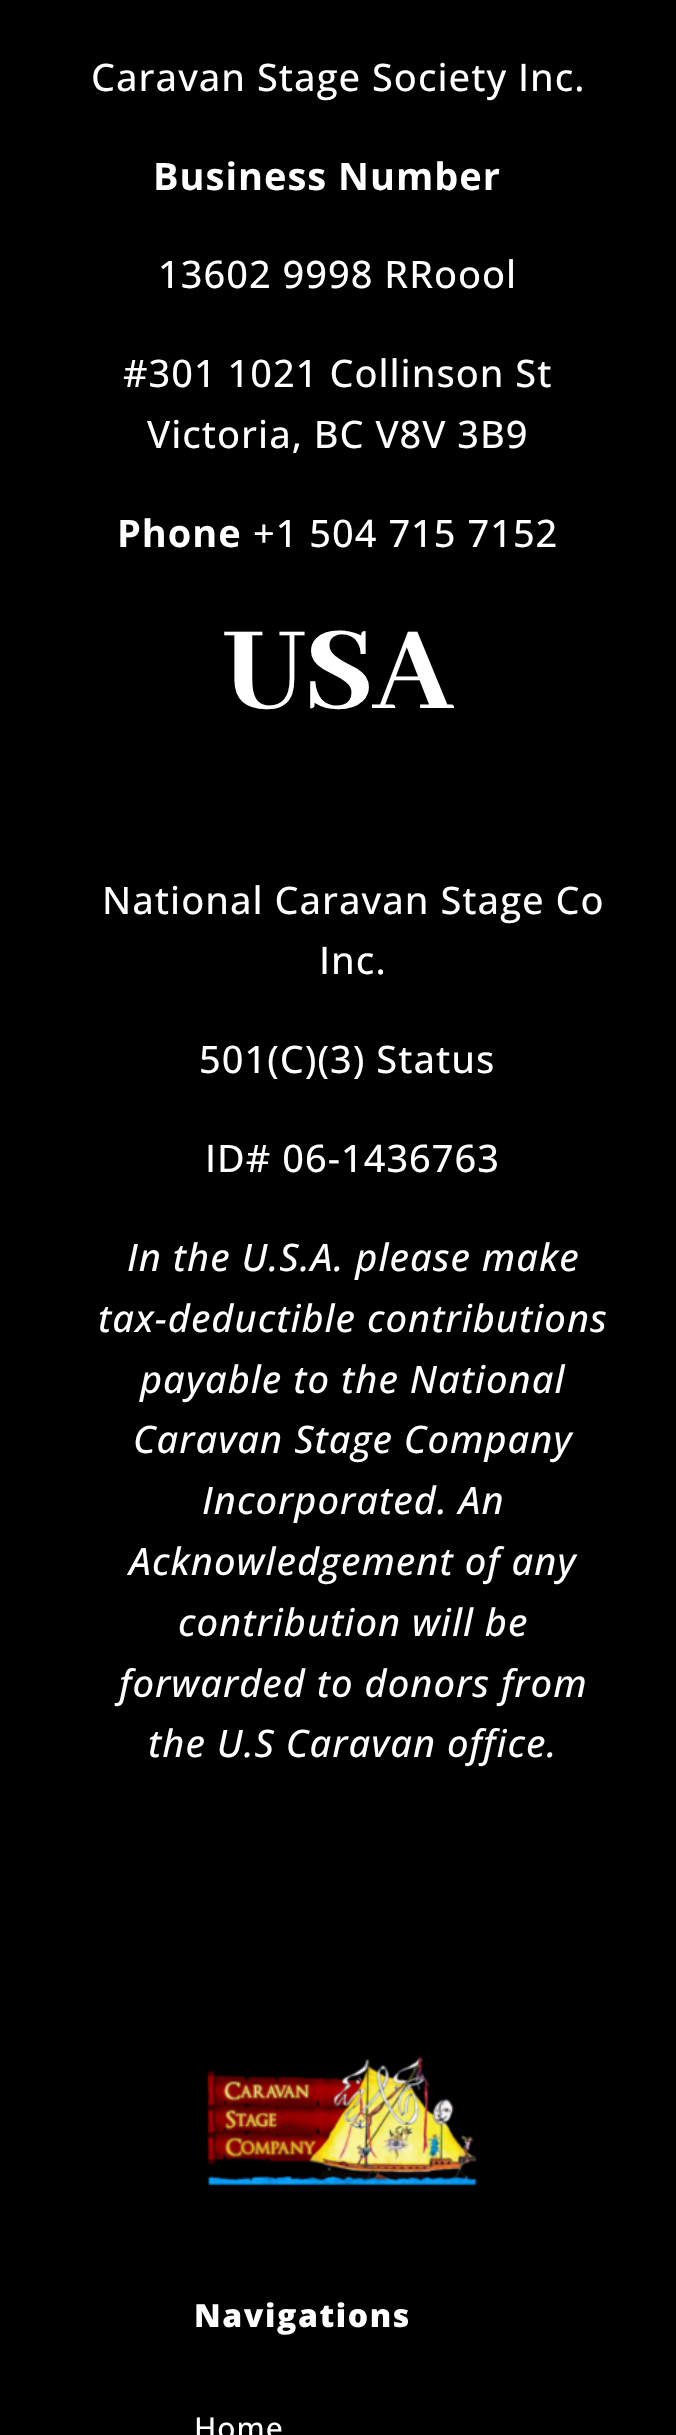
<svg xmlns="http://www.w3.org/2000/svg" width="676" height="2435">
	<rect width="100%" height="100%" fill="#000000" />
	<text x="91" y="91" font-family="Open Sans" font-size="38" font-weight="500" letter-spacing="1" fill="#FFFFFF">Caravan Stage Society Inc.</text>
	<text x="153" y="190" font-family="Open Sans" font-size="38" font-weight="700" letter-spacing="1" fill="#FFFFFF">Business Number</text>
	<g font-family="Open Sans" font-size="38" font-weight="500" letter-spacing="1" fill="#FFFFFF">
		<text x="158" y="288">13602 9998 RRoool</text>
		<text x="123" y="387">#301 1021 Collinson St</text>
		<text x="147" y="448">Victoria, BC V8V 3B9</text>
	</g>
	<text x="117" y="547" font-family="Open Sans" font-size="38" font-weight="700" letter-spacing="1" fill="#FFFFFF">Phone</text>
	<text x="253" y="547" font-family="Open Sans" font-size="38" font-weight="500" letter-spacing="1" fill="#FFFFFF">+1 504 715 7152</text>
	<text x="223" y="708" font-family="Abhaya Libre ExtraBold" font-size="130" font-weight="800" letter-spacing="-2" fill="#FFFFFF">USA</text>
	<g font-family="Open Sans" font-size="38" font-weight="500" letter-spacing="1" fill="#FFFFFF">
		<text x="102" y="914">National Caravan Stage Co</text>
		<text x="319" y="974">Inc.</text>
		<text x="199" y="1073">501(C)(3) Status</text>
		<text x="205" y="1172">ID# 06-1436763</text>
	</g>
	<g font-family="Open Sans" font-size="38" font-weight="500" font-style="italic" letter-spacing="1" fill="#FFFFFF">
		<text x="127" y="1271">In the U.S.A. please make</text>
		<text x="98" y="1332">tax-deductible contributions</text>
		<text x="140" y="1393">payable to the National</text>
		<text x="133" y="1453">Caravan Stage Company</text>
		<text x="202" y="1514">Incorporated. An</text>
		<text x="129" y="1575">Acknowledgement of any</text>
		<text x="178" y="1636">contribution will be</text>
		<text x="119" y="1697">forwarded to donors from</text>
		<text x="148" y="1757">the U.S Caravan office.</text>
	</g>
	<image x="206" y="2057" width="271" height="129" href="assets/img1.png" />
	<text x="194" y="2327" font-family="Open Sans" font-size="32" font-weight="800" letter-spacing="1.6" fill="#FFFFFF">Navigations</text>
	<text x="194" y="2439" font-family="Open Sans" font-size="30" font-weight="500" letter-spacing="1" fill="#FFFFFF">Home</text>
</svg>
